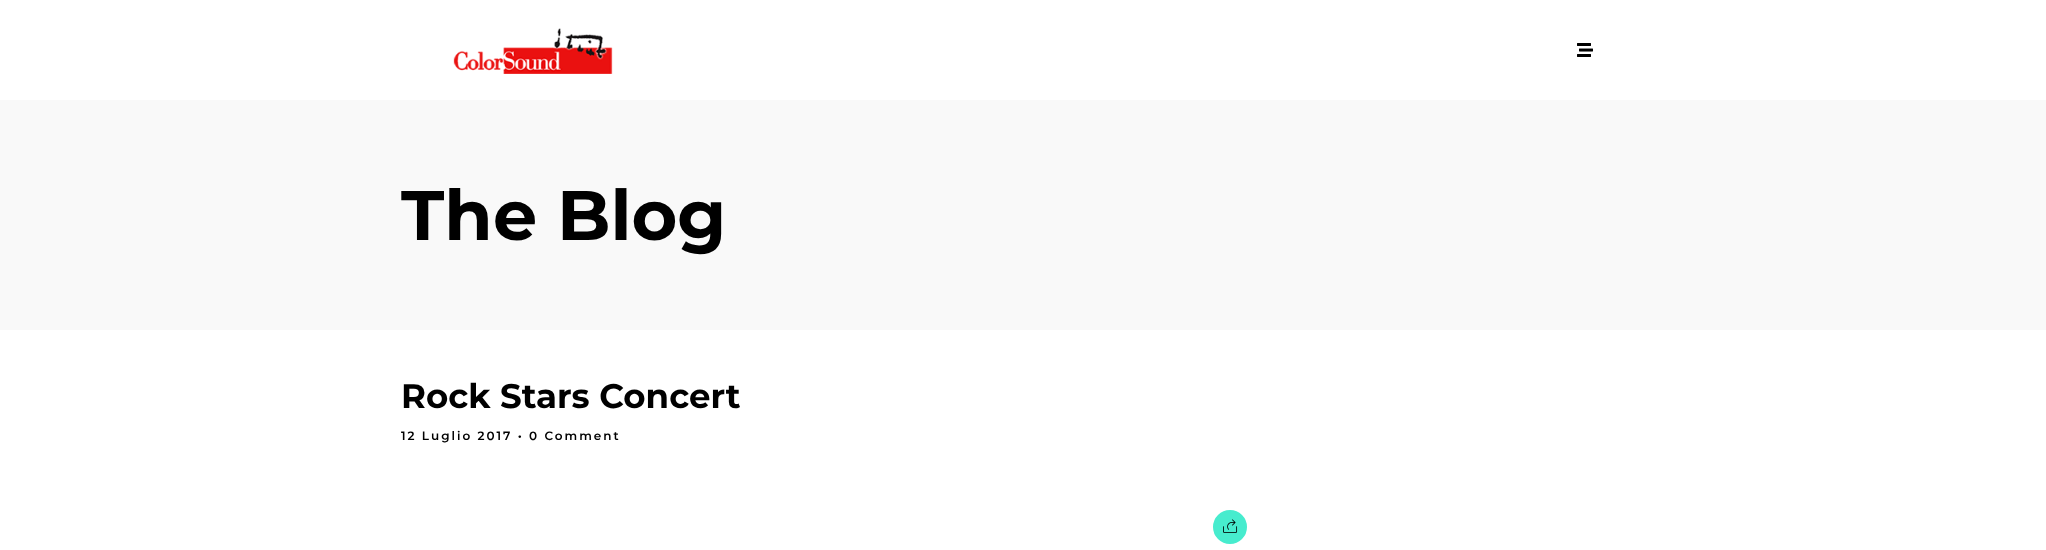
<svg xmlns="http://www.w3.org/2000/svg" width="2046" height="550">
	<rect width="100%" height="100%" fill="#FFFFFF" />
	<image x="453" y="28" width="160" height="46" href="assets/img1.png" />
	<image x="1577" y="43" width="16" height="14" href="assets/img2.png" />
	<rect x="0" y="100" width="2046" height="230" fill="#F9F9F9" />
	<text x="401" y="240" font-family="Montserrat" font-size="70" font-weight="700" fill="#000000">The Blog</text>
	<text x="401" y="408" font-family="Montserrat" font-size="34" font-weight="700" fill="#000000">Rock Stars Concert</text>
	<text x="401" y="440" font-family="Montserrat" font-size="12" font-weight="600" letter-spacing="2" fill="#000000">12 Luglio 2017 • 0 Comment</text>
	<circle cx="1230" cy="527" r="16" fill="#47ECCE" stroke="#47ECCE" stroke-width="2" />
	<image x="1223" y="519" width="15" height="14" href="assets/img3.png" />
</svg>
